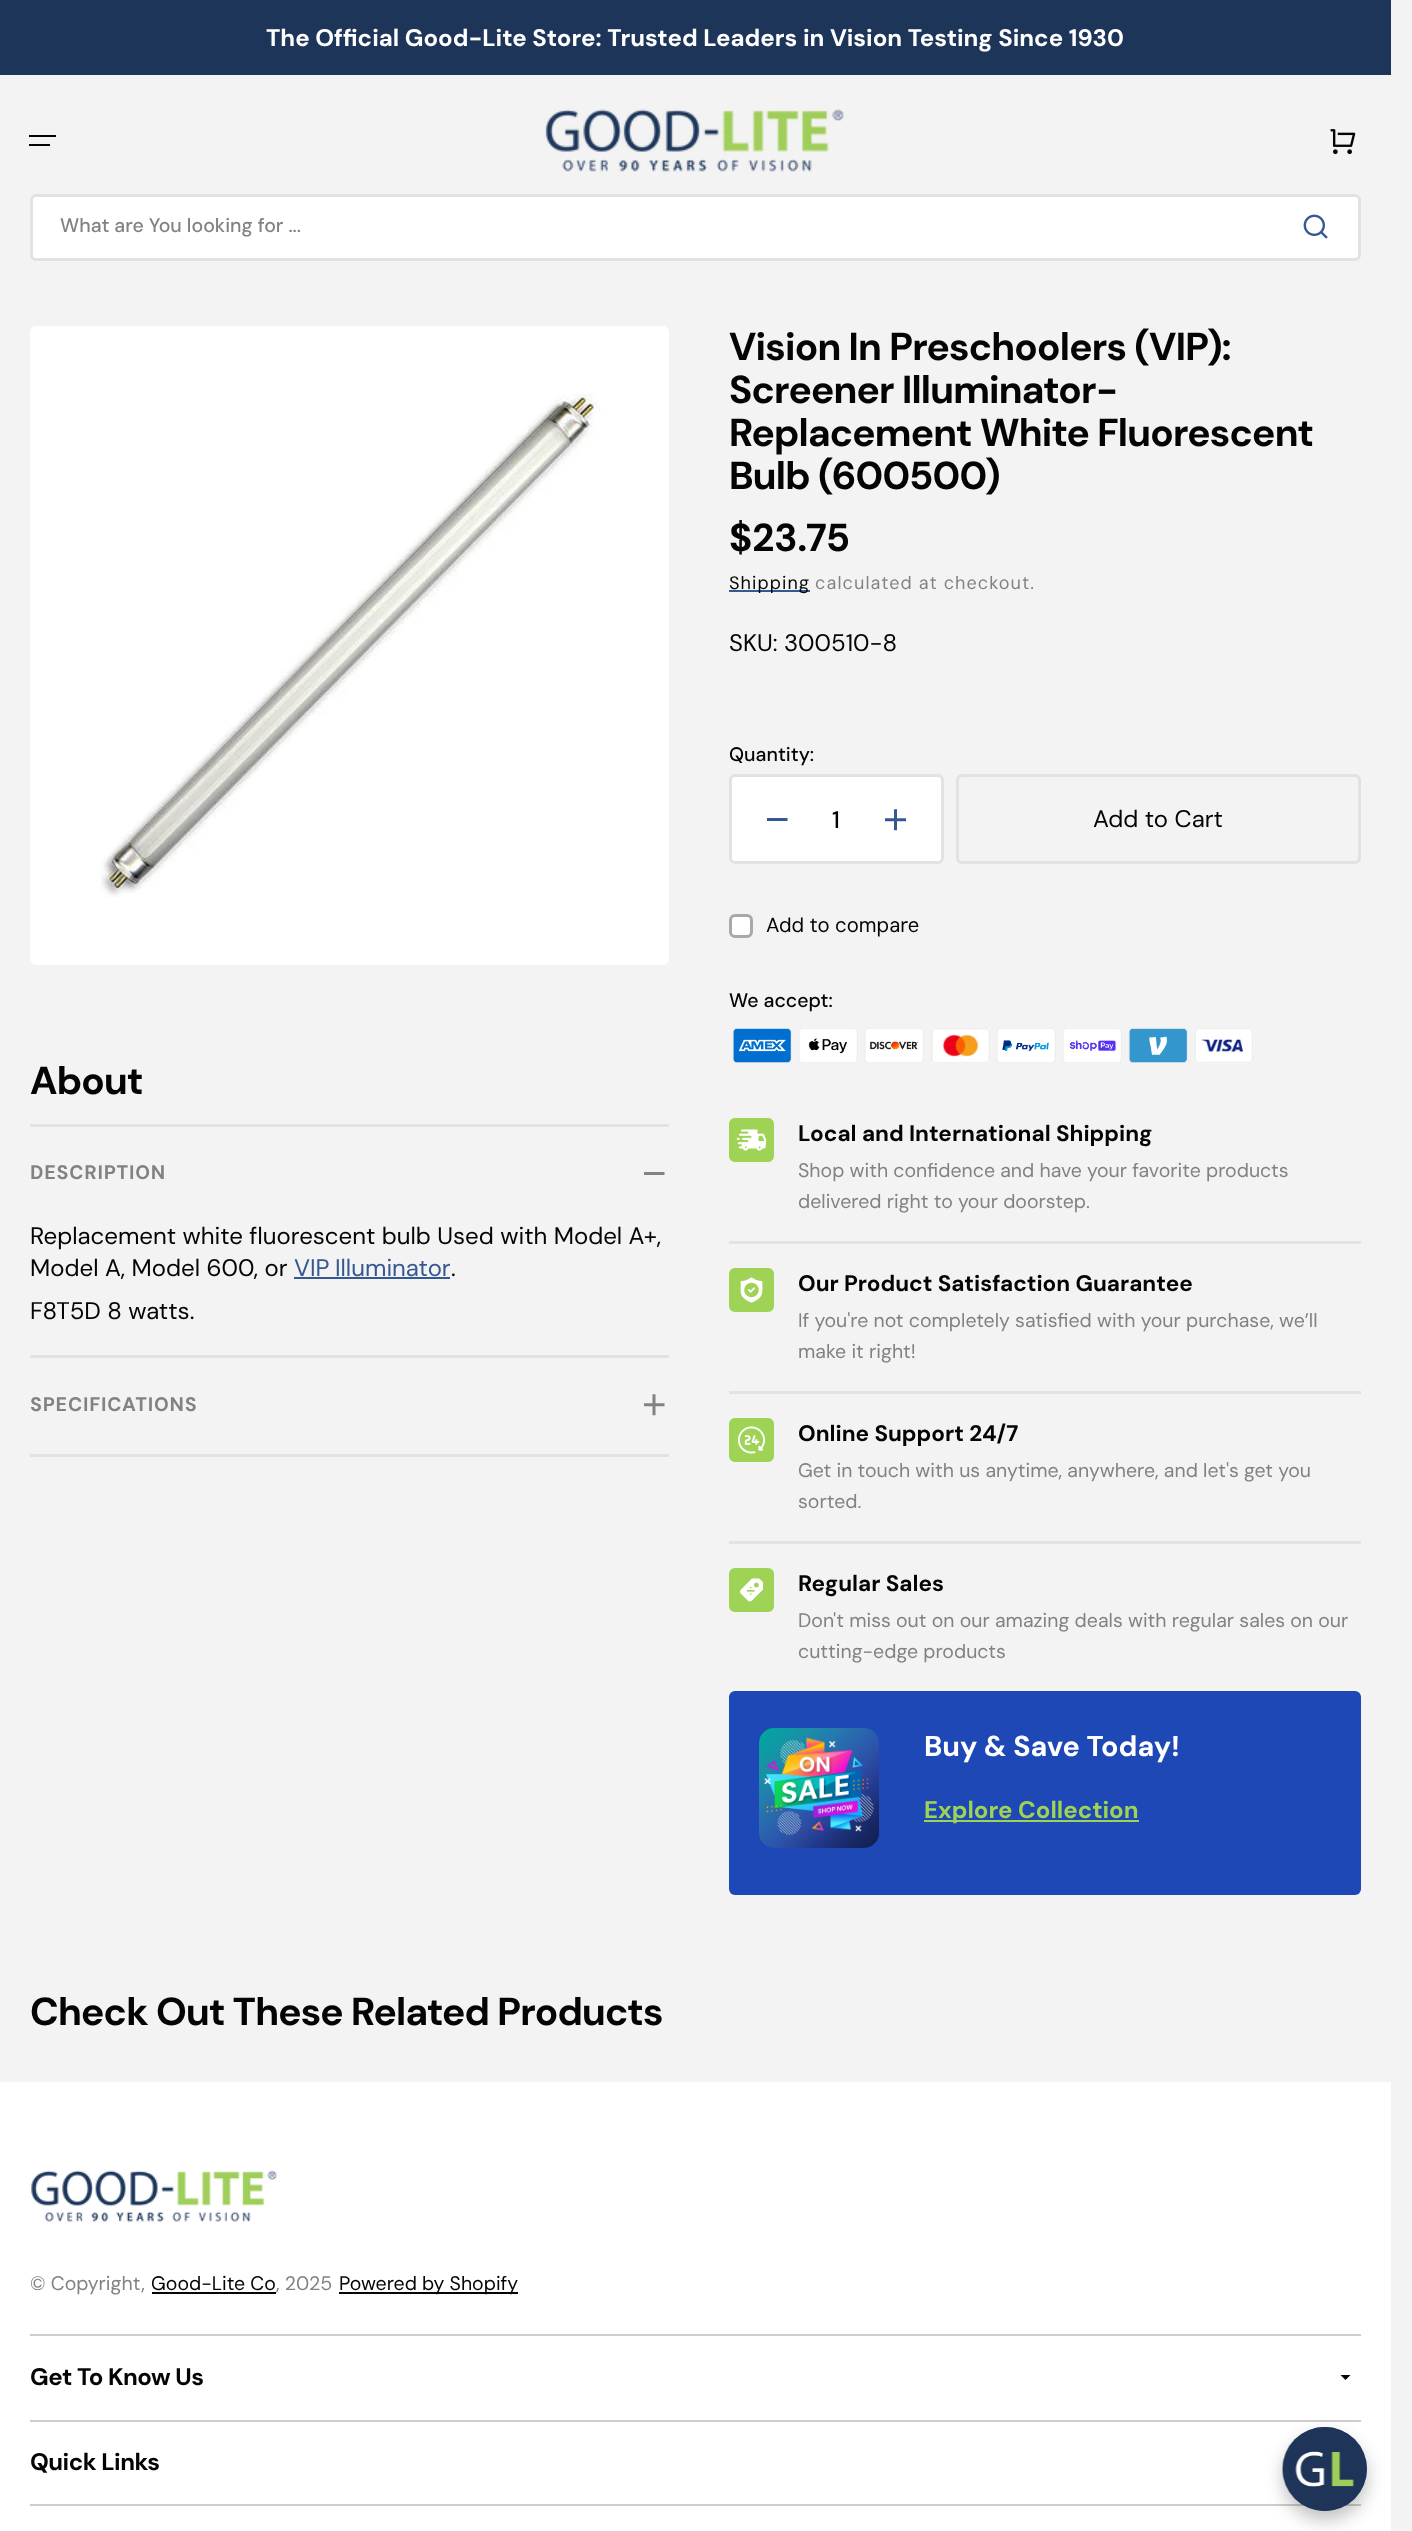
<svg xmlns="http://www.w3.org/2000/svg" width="1412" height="2531">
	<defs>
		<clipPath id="clip1"><rect x="644" y="1172" width="21" height="5" /></clipPath>
		<clipPath id="clip2"><rect x="767" y="818" width="21" height="5" /></clipPath>
	</defs>
	<rect width="100%" height="100%" fill="#F4F3F3" />
	<rect x="0" y="0" width="1391" height="75" fill="#1E355A" />
	<text x="266" y="46" font-family="'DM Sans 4'" font-size="24" font-weight="700" fill="#FFFFFF">The Official Good-Lite Store: Trusted Leaders in Vision Testing Since 1930</text>
	<rect x="29" y="135" width="27" height="2" fill="#040404" />
	<rect x="29" y="144" width="21" height="2" fill="#040404" />
	<image x="545" y="109" width="299" height="63" href="assets/img1.png" />
	<image x="1330" y="129" width="26" height="26" href="assets/img2.png" />
	<rect x="31.5" y="195.5" width="1328" height="64" rx="4.5" fill="#FFFFFF" stroke="#E3E1E1" stroke-width="3" />
	<text x="60" y="232" font-family="DM Sans" font-size="19.5" font-weight="500" fill="#828282">What are You looking for ...</text>
	<image x="1303" y="214" width="25" height="25" href="assets/img3.png" />
	<image x="33" y="326" width="633" height="1" href="assets/img5.png" />
	<rect x="30" y="326" width="639" height="639" rx="6" fill="#FFFFFF" />
	<image x="100" y="393" width="501" height="504" href="assets/img4.png" />
	<text x="30" y="1094" font-family="DM Sans" font-size="39" font-weight="700" letter-spacing="-0.75" fill="#040404">About</text>
	<rect x="30" y="1124" width="639" height="3" fill="#E3E1E1" />
	<text x="30" y="1179" font-family="'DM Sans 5'" font-size="19.5" font-weight="700" letter-spacing="0.75" fill="#828282">DESCRIPTION</text>
	<g clip-path="url(#clip1)">
		<path d="M652.5 1172H664.5V1175H643.5V1172Z" fill="#828282" />
	</g>
	<g font-family="'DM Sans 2'" font-size="24" fill="#040404">
		<text x="30" y="1244">Replacement white fluorescent bulb Used with Model A+,</text>
		<text x="30" y="1276">Model A, Model 600, or</text>
	</g>
	<text x="294" y="1276" word-spacing="-1" font-family="'DM Sans 2'" font-size="24" fill="#355891">VIP Illuminator</text>
	<rect x="294" y="1277" width="156" height="2" fill="#355891" />
	<g font-family="'DM Sans 2'" font-size="24" fill="#040404">
		<text x="451" y="1276">.</text>
		<text x="30" y="1319">F8T5D 8 watts.</text>
	</g>
	<rect x="30" y="1355" width="639" height="3" fill="#E3E1E1" />
	<rect x="30" y="1454" width="639" height="3" fill="#E3E1E1" />
	<text x="30" y="1411" font-family="'DM Sans 5'" font-size="19.5" font-weight="700" letter-spacing="0.75" fill="#828282">SPECIFICATIONS</text>
	<image x="644" y="1394" width="21" height="22" href="assets/img6.png" />
	<g font-family="DM Sans" font-size="39" font-weight="700" letter-spacing="-0.75" fill="#040404">
		<text x="729" y="360">Vision In Preschoolers (VIP):</text>
		<text x="729" y="403">Screener Illuminator-</text>
		<text x="729" y="446">Replacement White Fluorescent</text>
		<text x="729" y="489">Bulb (600500)</text>
	</g>
	<text x="729" y="551" font-family="DM Sans" font-size="39" font-weight="700" fill="#040404">$23.75</text>
	<rect x="729" y="590" width="81" height="2" fill="#355891" />
	<text x="729" y="589" font-family="DM Sans" font-size="18" letter-spacing="1.05" fill="#040404">Shipping</text>
	<text x="815" y="589" font-family="DM Sans" font-size="18" letter-spacing="1.05" fill="#828282">calculated at checkout.</text>
	<text x="729" y="651" font-family="'DM Sans 2'" font-size="24" fill="#040404">SKU: 300510-8</text>
	<text x="729" y="761" font-family="DM Sans" font-size="19.5" font-weight="500" fill="#040404">Quantity:</text>
	<rect x="730.5" y="775.5" width="212" height="87" rx="4.5" fill="#FFFFFF" stroke="#E3E1E1" stroke-width="3" />
	<g clip-path="url(#clip2)">
		<path d="M775.5 818H787.5V821H766.5V818Z" fill="#355891" />
	</g>
	<text x="832" y="828" font-family="'DM Sans 2'" font-size="24" font-weight="500" fill="#040404">1</text>
	<image x="885" y="809" width="21" height="22" href="assets/img7.png" />
	<rect x="957.5" y="775.5" width="402" height="87" rx="4.5" fill="none" stroke="#E3E1E1" stroke-width="3" />
	<text x="1093" y="827" font-family="'DM Sans 2'" font-size="24" fill="#040404">Add to Cart</text>
	<rect x="730.5" y="915.5" width="21" height="21" rx="4.5" fill="#FFFFFF" stroke="#A9A9A9" stroke-width="3" />
	<text x="766" y="932" font-family="DM Sans" font-size="20.25" fill="#040404">Add to compare</text>
	<text x="729" y="1007" font-family="DM Sans" font-size="19.5" font-weight="500" fill="#040404">We accept:</text>
	<image x="732" y="1028" width="60" height="35" href="assets/img8.png" />
	<image x="798" y="1028" width="60" height="35" href="assets/img9.png" />
	<image x="864" y="1028" width="60" height="35" href="assets/img10.png" />
	<image x="931" y="1028" width="59" height="35" href="assets/img11.png" />
	<image x="996" y="1028" width="60" height="35" href="assets/img12.png" />
	<image x="1062" y="1028" width="60" height="35" href="assets/img13.png" />
	<image x="1128" y="1028" width="60" height="35" href="assets/img14.png" />
	<image x="1195" y="1028" width="58" height="35" href="assets/img15.png" />
	<image x="729" y="1118" width="45" height="44" href="assets/img16.png" />
	<text x="798" y="1141" font-family="'DM Sans 2'" font-size="22.5" font-weight="700" fill="#040404">Local and International Shipping</text>
	<g font-family="'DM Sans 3'" font-size="19.5" fill="#828282">
		<text x="798" y="1177">Shop with confidence and have your favorite products</text>
		<text x="798" y="1208">delivered right to your doorstep.</text>
	</g>
	<rect x="729" y="1241" width="632" height="3" fill="#E3E1E1" />
	<image x="729" y="1268" width="45" height="44" href="assets/img17.png" />
	<text x="798" y="1291" font-family="'DM Sans 2'" font-size="22.5" font-weight="700" fill="#040404">Our Product Satisfaction Guarantee</text>
	<g font-family="'DM Sans 3'" font-size="19.5" fill="#828282">
		<text x="798" y="1327">If you're not completely satisfied with your purchase, we’ll</text>
		<text x="798" y="1358">make it right!</text>
	</g>
	<rect x="729" y="1391" width="632" height="3" fill="#E3E1E1" />
	<image x="729" y="1418" width="45" height="44" href="assets/img18.png" />
	<text x="798" y="1441" font-family="'DM Sans 2'" font-size="22.5" font-weight="700" fill="#040404">Online Support 24/7</text>
	<g font-family="'DM Sans 3'" font-size="19.5" fill="#828282">
		<text x="798" y="1477">Get in touch with us anytime, anywhere, and let's get you</text>
		<text x="798" y="1508">sorted.</text>
	</g>
	<rect x="729" y="1541" width="632" height="3" fill="#E3E1E1" />
	<image x="729" y="1568" width="45" height="44" href="assets/img19.png" />
	<text x="798" y="1591" font-family="'DM Sans 2'" font-size="22.5" font-weight="700" fill="#040404">Regular Sales</text>
	<g font-family="'DM Sans 3'" font-size="19.5" fill="#828282">
		<text x="798" y="1627">Don't miss out on our amazing deals with regular sales on our</text>
		<text x="798" y="1658">cutting-edge products</text>
	</g>
	<rect x="729" y="1691" width="632" height="204" rx="6" fill="#1E48B5" />
	<image x="759" y="1728" width="120" height="120" href="assets/img20.png" />
	<text x="924" y="1756" font-family="'DM Sans 3'" font-size="28.75" font-weight="700" fill="#FFFFFF">Buy &amp; Save Today!</text>
	<rect x="924" y="1820" width="215" height="2" fill="#9FD356" />
	<text x="924" y="1818" font-family="'DM Sans 4'" font-size="24" font-weight="700" fill="#9FD356">Explore Collection</text>
	<text x="30" y="2025" font-family="DM Sans" font-size="39" font-weight="700" letter-spacing="-0.75" fill="#040404">Check Out These Related Products</text>
	<rect x="0" y="2082" width="1391" height="449" fill="#FFFFFF" />
	<image x="31" y="2170" width="246" height="52" href="assets/img21.png" />
	<text x="30" y="2290" font-family="'DM Sans 3'" font-size="19.5" fill="#828282">© Copyright,</text>
	<text x="151" y="2290" font-family="'DM Sans 3'" font-size="19.5" fill="#040404">Good-Lite Co</text>
	<text x="276" y="2290" font-family="'DM Sans 3'" font-size="19.5" fill="#828282">, 2025</text>
	<rect x="152" y="2292" width="124" height="2" fill="#040404" />
	<rect x="339" y="2292" width="179" height="2" fill="#040404" />
	<text x="339" y="2290" font-family="'DM Sans 3'" font-size="19.5" fill="#040404">Powered by Shopify</text>
	<rect x="30" y="2334" width="1331" height="2" fill="#CDCDCD" />
	<rect x="30" y="2420" width="1331" height="2" fill="#CDCDCD" />
	<text x="30" y="2385" font-family="'DM Sans 4'" font-size="24" font-weight="700" letter-spacing="-0.5" fill="#040404">Get To Know Us</text>
	<path d="M1345.5 2380L1340.5 2375H1350.5Z" fill="#040404" />
	<rect x="30" y="2504" width="1331" height="2" fill="#CDCDCD" />
	<text x="30" y="2470" font-family="'DM Sans 4'" font-size="24" font-weight="700" letter-spacing="-0.5" fill="#040404">Quick Links</text>
	<rect x="1283" y="2436" width="84" height="84" rx="42" fill="#000000" fill-opacity="0.25" filter="blur(9px)" />
	<circle cx="1325" cy="2469" r="42" fill="#1E355A" />
	<image x="1282" y="2427" width="85" height="84" href="assets/img22.png" />
</svg>
